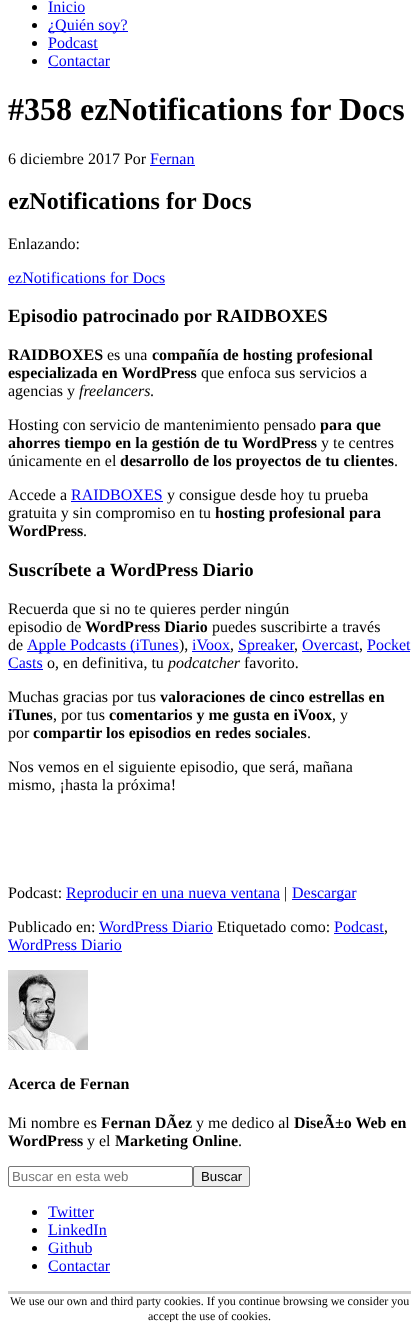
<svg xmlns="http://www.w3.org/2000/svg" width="419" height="1322">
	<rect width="100%" height="100%" fill="#FFFFFF" />
	<circle cx="34.5" cy="7.5" r="2.5" fill="#000000" />
	<text x="48" y="12" font-family="Liberation Serif" font-size="16" fill="#0000EE">Inicio</text>
	<rect x="48" y="13" width="37" height="1" fill="#0000EE" />
	<circle cx="34.5" cy="25.5" r="2.5" fill="#000000" />
	<rect x="48" y="31" width="80" height="1" fill="#0000EE" />
	<text x="48" y="30" font-family="Liberation Serif" font-size="16" fill="#0000EE">¿Quién soy?</text>
	<circle cx="34.5" cy="43.5" r="2.5" fill="#000000" />
	<text x="48" y="48" font-family="Liberation Serif" font-size="16" fill="#0000EE">Podcast</text>
	<rect x="48" y="49" width="50" height="1" fill="#0000EE" />
	<circle cx="34.5" cy="61.5" r="2.5" fill="#000000" />
	<text x="48" y="66" font-family="Liberation Serif" font-size="16" fill="#0000EE">Contactar</text>
	<rect x="48" y="67" width="62" height="1" fill="#0000EE" />
	<text x="8" y="120" font-family="Liberation Serif" font-size="32" font-weight="700" fill="#000000">#358 ezNotifications for Docs</text>
	<text x="8" y="164" font-family="Liberation Serif" font-size="16" fill="#000000">6 diciembre 2017 Por</text>
	<text x="150" y="164" font-family="Liberation Serif" font-size="16" fill="#0000EE">Fernan</text>
	<rect x="150" y="165" width="45" height="1" fill="#0000EE" />
	<text x="8" y="209" font-family="Liberation Serif" font-size="24" font-weight="700" fill="#000000">ezNotifications for Docs</text>
	<text x="8" y="249" font-family="Liberation Serif" font-size="16" fill="#000000">Enlazando:</text>
	<text x="8" y="283" font-family="Liberation Serif" font-size="16" fill="#0000EE">ezNotifications for Docs</text>
	<rect x="8" y="284" width="157" height="1" fill="#0000EE" />
	<text x="8" y="322" font-family="Liberation Serif" font-size="18.75" font-weight="700" fill="#000000">Episodio patrocinado por RAIDBOXES</text>
	<text x="8" y="360" font-family="Liberation Serif" font-size="16" font-weight="700" fill="#000000">RAIDBOXES</text>
	<text x="107" y="360" font-family="Liberation Serif" font-size="16" fill="#000000">es una</text>
	<g font-family="Liberation Serif" font-size="16" font-weight="700" fill="#000000">
		<text x="152" y="360">compañía de hosting profesional</text>
		<text x="8" y="378">especializada en WordPress</text>
	</g>
	<g font-family="Liberation Serif" font-size="16" fill="#000000">
		<text x="201" y="378">que enfoca sus servicios a</text>
		<text x="8" y="396">agencias y</text>
	</g>
	<text x="79" y="396" font-family="Liberation Serif" font-size="16" font-style="italic" fill="#000000">freelancers</text>
	<g font-family="Liberation Serif" font-size="16" fill="#000000">
		<text x="150" y="396">.</text>
		<text x="8" y="430">Hosting con servicio de mantenimiento pensado</text>
	</g>
	<g font-family="Liberation Serif" font-size="16" font-weight="700" fill="#000000">
		<text x="320" y="430">para que</text>
		<text x="8" y="448">ahorres tiempo en la gestión de tu WordPress</text>
	</g>
	<g font-family="Liberation Serif" font-size="16" fill="#000000">
		<text x="321" y="448">y te centres</text>
		<text x="8" y="466">únicamente en el</text>
	</g>
	<text x="120" y="466" font-family="Liberation Serif" font-size="16" font-weight="700" fill="#000000">desarrollo de los proyectos de tu clientes</text>
	<g font-family="Liberation Serif" font-size="16" fill="#000000">
		<text x="394" y="466">.</text>
		<text x="8" y="500">Accede a</text>
	</g>
	<text x="71" y="500" font-family="Liberation Serif" font-size="16" fill="#0000EE">RAIDBOXES</text>
	<rect x="71" y="501" width="92" height="1" fill="#0000EE" />
	<g font-family="Liberation Serif" font-size="16" fill="#000000">
		<text x="167" y="500">y consigue desde hoy tu prueba</text>
		<text x="8" y="518">gratuita y sin compromiso en tu</text>
	</g>
	<g font-family="Liberation Serif" font-size="16" font-weight="700" fill="#000000">
		<text x="215" y="518">hosting profesional para</text>
		<text x="8" y="536">WordPress</text>
	</g>
	<text x="83" y="536" font-family="Liberation Serif" font-size="16" fill="#000000">.</text>
	<text x="8" y="576" font-family="Liberation Serif" font-size="18.75" font-weight="700" fill="#000000">Suscríbete a WordPress Diario</text>
	<g font-family="Liberation Serif" font-size="16" fill="#000000">
		<text x="8" y="614">Recuerda que si no te quieres perder ningún</text>
		<text x="8" y="632">episodio de</text>
	</g>
	<text x="85" y="632" font-family="Liberation Serif" font-size="16" font-weight="700" fill="#000000">WordPress Diario</text>
	<g font-family="Liberation Serif" font-size="16" fill="#000000">
		<text x="212" y="632">puedes suscribirte a través</text>
		<text x="8" y="650">de</text>
	</g>
	<rect x="27" y="651" width="152" height="1" fill="#0000EE" />
	<text x="27" y="650" font-family="Liberation Serif" font-size="16" fill="#0000EE">Apple Podcasts (iTunes</text>
	<text x="179" y="650" font-family="Liberation Serif" font-size="16" fill="#000000">),</text>
	<text x="192" y="650" font-family="Liberation Serif" font-size="16" fill="#0000EE">iVoox</text>
	<rect x="192" y="651" width="38" height="1" fill="#0000EE" />
	<text x="230" y="650" font-family="Liberation Serif" font-size="16" fill="#000000">,</text>
	<rect x="238" y="651" width="56" height="1" fill="#0000EE" />
	<text x="238" y="650" font-family="Liberation Serif" font-size="16" fill="#0000EE">Spreaker</text>
	<text x="294" y="650" font-family="Liberation Serif" font-size="16" fill="#000000">,</text>
	<text x="302" y="650" font-family="Liberation Serif" font-size="16" fill="#0000EE">Overcast</text>
	<rect x="302" y="651" width="57" height="1" fill="#0000EE" />
	<text x="359" y="650" font-family="Liberation Serif" font-size="16" fill="#000000">,</text>
	<text x="367" y="650" font-family="Liberation Serif" font-size="16" fill="#0000EE">Pocket</text>
	<rect x="367" y="651" width="43" height="1" fill="#0000EE" />
	<text x="8" y="668" font-family="Liberation Serif" font-size="16" fill="#0000EE">Casts</text>
	<rect x="8" y="669" width="35" height="1" fill="#0000EE" />
	<text x="47" y="668" font-family="Liberation Serif" font-size="16" fill="#000000">o, en definitiva, tu</text>
	<text x="168" y="668" font-family="Liberation Serif" font-size="16" font-style="italic" fill="#000000">podcatcher</text>
	<g font-family="Liberation Serif" font-size="16" fill="#000000">
		<text x="244" y="668">favorito.</text>
		<text x="8" y="702">Muchas gracias por tus</text>
	</g>
	<g font-family="Liberation Serif" font-size="16" font-weight="700" fill="#000000">
		<text x="160" y="702">valoraciones de cinco estrellas en</text>
		<text x="8" y="720">iTunes</text>
	</g>
	<text x="53" y="720" font-family="Liberation Serif" font-size="16" fill="#000000">, por tus</text>
	<text x="109" y="720" font-family="Liberation Serif" font-size="16" font-weight="700" fill="#000000">comentarios y me gusta en iVoox</text>
	<g font-family="Liberation Serif" font-size="16" fill="#000000">
		<text x="332" y="720">, y</text>
		<text x="8" y="738">por</text>
	</g>
	<text x="33" y="738" font-family="Liberation Serif" font-size="16" font-weight="700" fill="#000000">compartir los episodios en redes sociales</text>
	<g font-family="Liberation Serif" font-size="16" fill="#000000">
		<text x="307" y="738">.</text>
		<text x="8" y="772">Nos vemos en el siguiente episodio, que será, mañana</text>
		<text x="8" y="790">mismo, ¡hasta la próxima!</text>
		<text x="8" y="898">Podcast:</text>
	</g>
	<rect x="66" y="899" width="214" height="1" fill="#0000EE" />
	<text x="66" y="898" font-family="Liberation Serif" font-size="16" fill="#0000EE">Reproducir en una nueva ventana</text>
	<text x="284" y="898" font-family="Liberation Serif" font-size="16" fill="#000000">|</text>
	<rect x="292" y="899" width="64" height="1" fill="#0000EE" />
	<text x="292" y="898" font-family="Liberation Serif" font-size="16" fill="#0000EE">Descargar</text>
	<text x="8" y="932" font-family="Liberation Serif" font-size="16" fill="#000000">Publicado en:</text>
	<text x="99" y="932" font-family="Liberation Serif" font-size="16" fill="#0000EE">WordPress Diario</text>
	<rect x="99" y="933" width="114" height="1" fill="#0000EE" />
	<text x="217" y="932" font-family="Liberation Serif" font-size="16" fill="#000000">Etiquetado como:</text>
	<text x="334" y="932" font-family="Liberation Serif" font-size="16" fill="#0000EE">Podcast</text>
	<text x="384" y="932" font-family="Liberation Serif" font-size="16" fill="#000000">,</text>
	<rect x="334" y="933" width="50" height="1" fill="#0000EE" />
	<text x="8" y="950" font-family="Liberation Serif" font-size="16" fill="#0000EE">WordPress Diario</text>
	<rect x="8" y="951" width="114" height="1" fill="#0000EE" />
	<image x="8" y="970" width="80" height="80" href="assets/img1.png" />
	<text x="8" y="1089" font-family="Liberation Serif" font-size="16" font-weight="700" fill="#000000">Acerca de Fernan</text>
	<text x="8" y="1128" font-family="Liberation Serif" font-size="16" fill="#000000">Mi nombre es</text>
	<text x="101" y="1128" font-family="Liberation Serif" font-size="16" font-weight="700" fill="#000000">Fernan DÃez</text>
	<text x="196" y="1128" font-family="Liberation Serif" font-size="16" fill="#000000">y me dedico al</text>
	<g font-family="Liberation Serif" font-size="16" font-weight="700" fill="#000000">
		<text x="294" y="1128">DiseÃ±o Web en</text>
		<text x="8" y="1146">WordPress</text>
	</g>
	<text x="87" y="1146" font-family="Liberation Serif" font-size="16" fill="#000000">y el</text>
	<text x="115" y="1146" font-family="Liberation Serif" font-size="16" font-weight="700" fill="#000000">Marketing Online</text>
	<text x="238" y="1146" font-family="Liberation Serif" font-size="16" fill="#000000">.</text>
	<rect x="8.5" y="1166.5" width="184" height="20" rx="1.5" fill="none" stroke="#767676" />
	<text x="12" y="1181" font-family="Liberation Sans" font-size="13.25" fill="#757575">Buscar en esta web</text>
	<rect x="193.5" y="1166.5" width="56" height="20" rx="1.5" fill="#EFEFEF" stroke="#767676" />
	<text x="201" y="1181" font-family="Liberation Sans" font-size="13.25" fill="#000000">Buscar</text>
	<circle cx="34.5" cy="1212.5" r="2.5" fill="#000000" />
	<text x="48" y="1217" font-family="Liberation Serif" font-size="16" fill="#0000EE">Twitter</text>
	<rect x="48" y="1218" width="46" height="1" fill="#0000EE" />
	<circle cx="34.5" cy="1230.5" r="2.5" fill="#000000" />
	<text x="48" y="1235" font-family="Liberation Serif" font-size="16" fill="#0000EE">LinkedIn</text>
	<rect x="48" y="1236" width="59" height="1" fill="#0000EE" />
	<circle cx="34.5" cy="1248.5" r="2.5" fill="#000000" />
	<text x="48" y="1253" font-family="Liberation Serif" font-size="16" fill="#0000EE">Github</text>
	<rect x="48" y="1254" width="44" height="1" fill="#0000EE" />
	<circle cx="34.5" cy="1266.5" r="2.5" fill="#000000" />
	<text x="48" y="1271" font-family="Liberation Serif" font-size="16" fill="#0000EE">Contactar</text>
	<rect x="48" y="1272" width="62" height="1" fill="#0000EE" />
	<rect x="8" y="1291" width="403" height="3" fill="#CCCCCC" />
	<g font-family="Liberation Serif" font-size="12" fill="#000000">
		<text x="10" y="1305">We use our own and third party cookies. If you continue browsing we consider you</text>
		<text x="148" y="1320">accept the use of cookies.</text>
	</g>
</svg>
